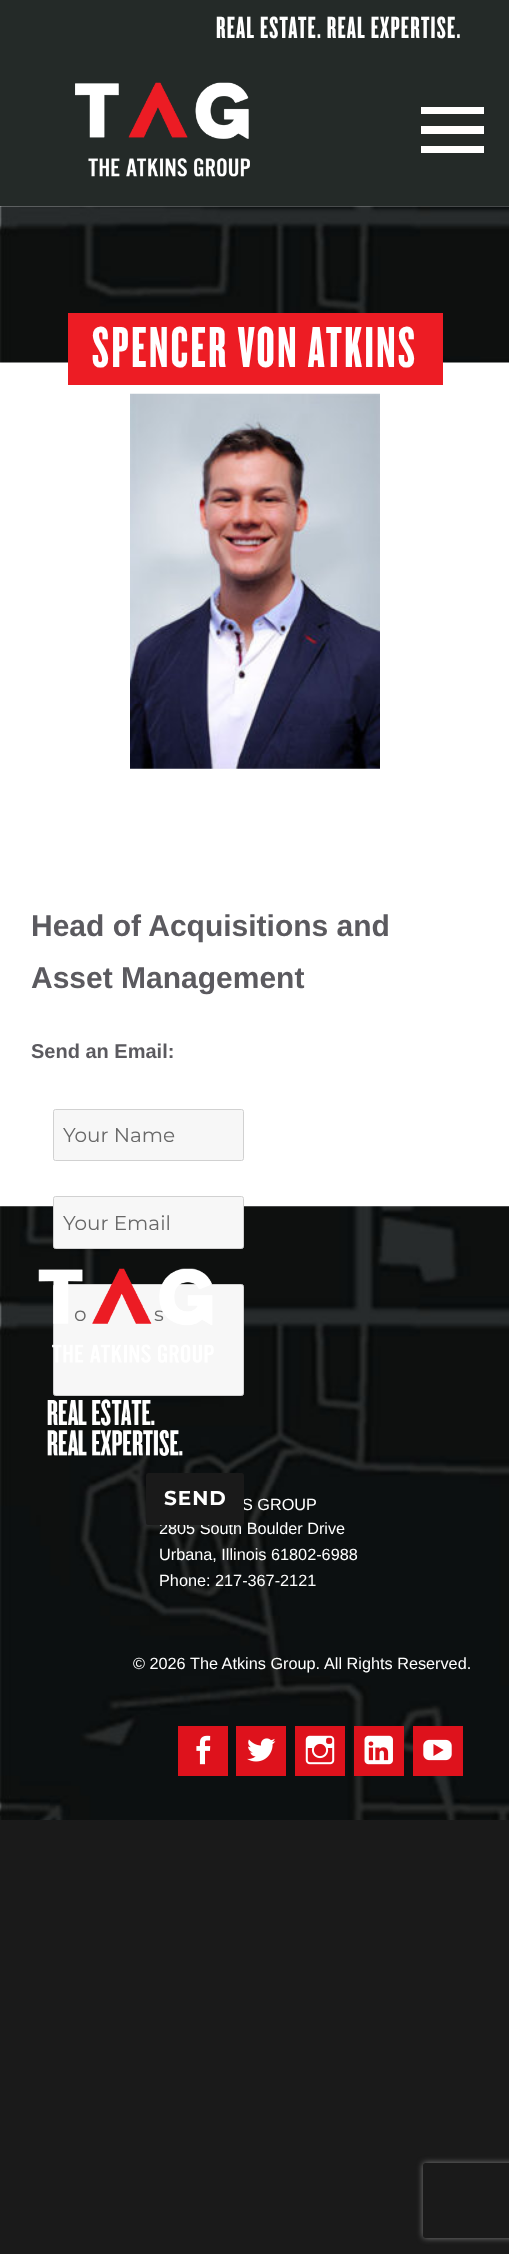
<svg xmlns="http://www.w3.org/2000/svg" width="509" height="2254">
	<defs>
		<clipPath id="clip1"><path d="M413 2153H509V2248H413ZM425.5 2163H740.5C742 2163 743 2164 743 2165.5V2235.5C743 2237 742 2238 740.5 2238H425.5C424 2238 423 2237 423 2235.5V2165.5C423 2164 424 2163 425.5 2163Z" clip-rule="evenodd" /></clipPath>
	</defs>
	<rect width="100%" height="100%" fill="#1A1A1A" />
	<rect x="0" y="206" width="509" height="1001" fill="#FFFFFF" />
	<rect x="0" y="0" width="509" height="206" fill="#242A28" />
	<text x="216" y="38" font-family="'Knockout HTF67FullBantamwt'" font-size="32" font-weight="500" letter-spacing="1.25" fill="#FFFFFF">REAL ESTATE. REAL EXPERTISE.</text>
	<image x="75" y="82" width="175" height="95" href="assets/img1.png" />
	<path d="M421 153V146H484V153ZM421 107H484V114H421ZM421 134V126H484V134Z" fill="#FFFFFF" />
	<image x="0" y="206" width="509" height="157" href="assets/img2.png" />
	<rect x="68" y="313" width="375" height="72" fill="#ED1C24" />
	<text x="92" y="367" font-family="'Knockout HTF67FullBantamwt'" font-size="60" font-weight="500" letter-spacing="2.5" fill="#FFFFFF">SPENCER VON ATKINS</text>
	<image x="130" y="393" width="250" height="376" href="assets/img3.png" />
	<g font-family="Liberation Sans" font-size="30" font-weight="700" fill="#5B5A5F">
		<text x="31" y="936">Head of Acquisitions and</text>
		<text x="31" y="988">Asset Management</text>
	</g>
	<text x="31" y="1058" font-family="Liberation Sans" font-size="20" font-weight="700" fill="#5B5A5F">Send an Email:</text>
	<rect x="53.5" y="1109.5" width="190" height="51" rx="2" fill="#F7F7F7" stroke="#D1D1D1" />
	<text x="63" y="1142" font-family="'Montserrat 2'" font-size="20" font-weight="100" fill="#686868">Your Name</text>
	<image x="0" y="1206" width="509" height="614" href="assets/img4.png" />
	<rect x="53.5" y="1196.5" width="190" height="52" rx="2" fill="#F7F7F7" stroke="#D1D1D1" />
	<text x="63" y="1230" font-family="'Montserrat 2'" font-size="20" font-weight="100" fill="#686868">Your Email</text>
	<rect x="53.5" y="1284.5" width="190" height="111" rx="2" fill="#F7F7F7" stroke="#D1D1D1" />
	<g font-family="'Montserrat 2'" font-size="20" font-weight="100" fill="#686868">
		<text x="74" y="1321">o</text>
		<text x="154" y="1321">s</text>
	</g>
	<g font-family="Liberation Sans" font-size="16.25" fill="#FFFFFF">
		<text x="242" y="1510">S GROUP</text>
		<text x="159" y="1534">2805 South Boulder Drive</text>
	</g>
	<rect x="146" y="1473" width="98" height="52" rx="2.5" fill="#1A1A1A" />
	<text x="164" y="1505" font-family="Montserrat" font-size="20" font-weight="100" letter-spacing="1" fill="#FFFFFF">SEND</text>
	<image x="38" y="1268" width="176" height="188" href="assets/img5.png" />
	<g font-family="Liberation Sans" font-size="16.25" fill="#FFFFFF">
		<text x="159" y="1560">Urbana, Illinois 61802-6988</text>
		<text x="159" y="1586">Phone: 217-367-2121</text>
		<text x="133" y="1669">© 2026</text>
		<text x="190" y="1669">The Atkins Group.</text>
		<text x="324" y="1669">All Rights Reserved.</text>
	</g>
	<rect x="178" y="1726" width="50" height="50" fill="#DE121C" />
	<image x="196" y="1735" width="15" height="30" href="assets/img6.png" />
	<rect x="236" y="1726" width="50" height="50" fill="#DE121C" />
	<image x="247" y="1738" width="29" height="24" href="assets/img7.png" />
	<rect x="295" y="1726" width="50" height="50" fill="#DE121C" />
	<image x="305" y="1735" width="30" height="30" href="assets/img8.png" />
	<rect x="354" y="1726" width="50" height="50" fill="#DE121C" />
	<image x="364" y="1735" width="29" height="30" href="assets/img9.png" />
	<rect x="413" y="1726" width="50" height="50" fill="#DE121C" />
	<image x="423" y="1739" width="29" height="22" href="assets/img10.png" />
	<g clip-path="url(#clip1)">
		<rect x="423" y="2163" width="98" height="75" rx="2.5" fill="#808080" filter="blur(3px)" />
	</g>
</svg>
